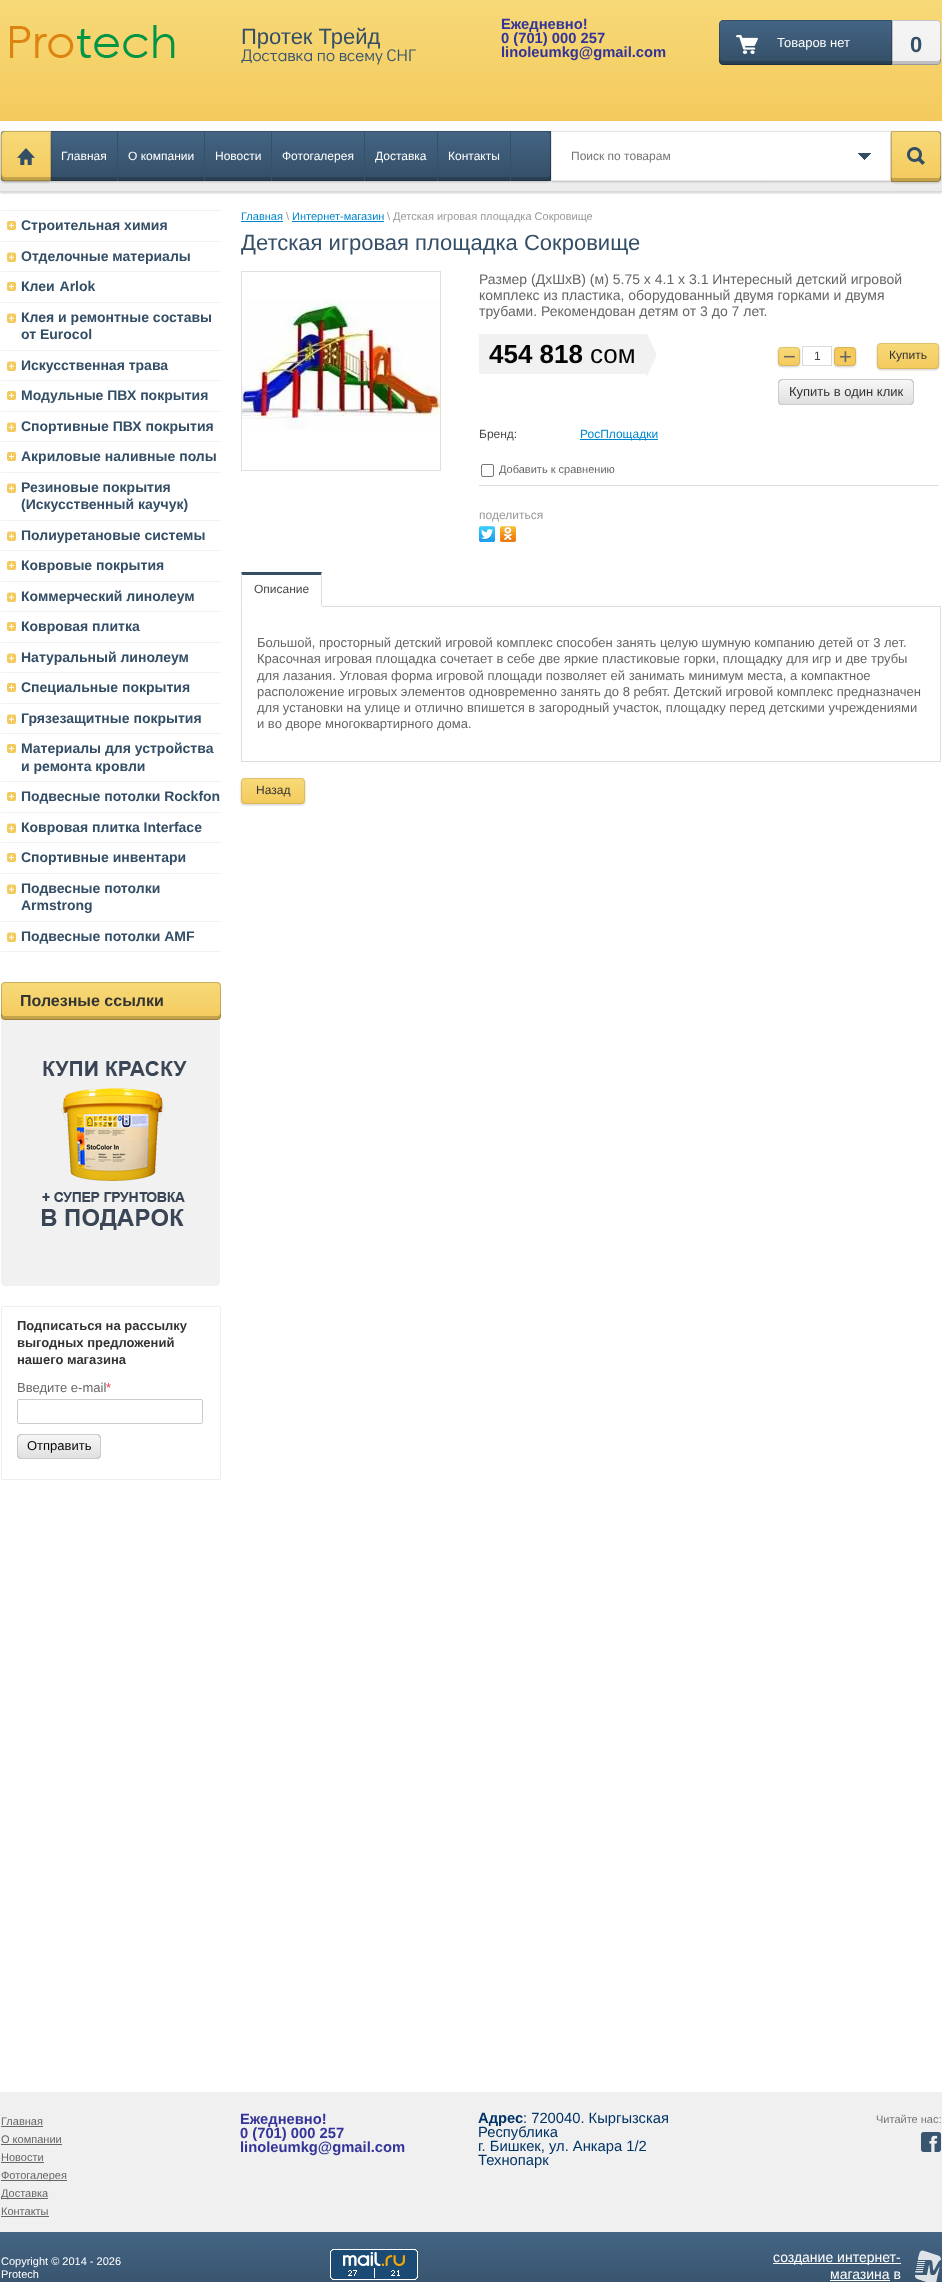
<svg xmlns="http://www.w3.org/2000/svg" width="942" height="2282">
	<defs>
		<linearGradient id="g1" gradientUnits="userSpaceOnUse" x1="471" y1="-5" x2="471" y2="121"><stop offset="0" stop-color="#F7DA79" /><stop offset="1" stop-color="#F4CA5D" /></linearGradient>
		<linearGradient id="g2" gradientUnits="userSpaceOnUse" x1="806" y1="20" x2="806" y2="65"><stop offset="0" stop-color="#446585" /><stop offset="1" stop-color="#344E66" /></linearGradient>
		<linearGradient id="g3" gradientUnits="userSpaceOnUse" x1="917" y1="20" x2="917" y2="65"><stop offset="0" stop-color="#F5F5F5" /><stop offset="1" stop-color="#F1F1F1" /></linearGradient>
		<linearGradient id="g4" gradientUnits="userSpaceOnUse" x1="471" y1="121" x2="471" y2="191"><stop offset="0" stop-color="#FFFFFF" /><stop offset="1" stop-color="#EBEBEB" /></linearGradient>
		<linearGradient id="g5" gradientUnits="userSpaceOnUse" x1="276" y1="131" x2="276" y2="181"><stop offset="0" stop-color="#446585" /><stop offset="1" stop-color="#344E66" /></linearGradient>
		<linearGradient id="g6" gradientUnits="userSpaceOnUse" x1="26" y1="131" x2="26" y2="181"><stop offset="0" stop-color="#F7DA79" /><stop offset="1" stop-color="#F4CA5D" /></linearGradient>
		<linearGradient id="g7" gradientUnits="userSpaceOnUse" x1="916" y1="131" x2="916" y2="182"><stop offset="0" stop-color="#F7DA79" /><stop offset="1" stop-color="#F4CA5D" /></linearGradient>
		<linearGradient id="g8" gradientUnits="userSpaceOnUse" x1="111" y1="982" x2="111" y2="1020"><stop offset="0" stop-color="#F7DA79" /><stop offset="1" stop-color="#F4CA5D" /></linearGradient>
		<linearGradient id="g9" gradientUnits="userSpaceOnUse" x1="59" y1="1434" x2="59" y2="1459"><stop offset="0" stop-color="#F8F8F8" /><stop offset="1" stop-color="#DFDFDF" /></linearGradient>
		<linearGradient id="g10" gradientUnits="userSpaceOnUse" x1="789" y1="347" x2="789" y2="366"><stop offset="0" stop-color="#F7DA79" /><stop offset="1" stop-color="#F4CA5D" /></linearGradient>
		<linearGradient id="g11" gradientUnits="userSpaceOnUse" x1="908" y1="343" x2="908" y2="369"><stop offset="0" stop-color="#F7DA79" /><stop offset="1" stop-color="#F4CA5D" /></linearGradient>
		<linearGradient id="g12" gradientUnits="userSpaceOnUse" x1="846" y1="379" x2="846" y2="405"><stop offset="0" stop-color="#F8F8F8" /><stop offset="1" stop-color="#DFDFDF" /></linearGradient>
		<linearGradient id="g13" gradientUnits="userSpaceOnUse" x1="273" y1="778" x2="273" y2="804"><stop offset="0" stop-color="#F7DA79" /><stop offset="1" stop-color="#F4CA5D" /></linearGradient>
		<linearGradient id="g14" gradientUnits="userSpaceOnUse" x1="471" y1="2232" x2="471" y2="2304"><stop offset="0" stop-color="#446585" /><stop offset="1" stop-color="#344E66" /></linearGradient>
	</defs>
	<rect width="100%" height="100%" fill="#FFFFFF" />
	<rect x="0" y="0" width="942" height="121" fill="url(#g1)" />
	<image x="10" y="25" width="165" height="33" href="assets/img1.png" />
	<text x="241" y="44" font-family="Liberation Sans" font-size="22" fill="#344E66">Протек Трейд</text>
	<text x="241" y="61" font-family="Didact Gothic" font-size="17" fill="#37536D">Доставка по всему СНГ</text>
	<g font-family="Liberation Sans" font-size="14.75" font-weight="700" fill="#333399">
		<text x="501" y="29">Ежедневно!</text>
		<text x="501" y="43">0 (701) 000 257</text>
		<text x="501" y="57">linoleumkg@gmail.com</text>
	</g>
	<path d="M723 20H892V65H723C721 65 719 63 719 61V24C719 22 721 20 723 20Z" fill="url(#g2)" />
	<path d="M723 20.5H891.5V64.5H723C721 64.5 719.5 63 719.5 61V24C719.5 22 721 20.5 723 20.5Z" fill="none" stroke="#000000" stroke-opacity="0.2" />
	<path d="M719 57V61C719 63 721 65 723 65H892V61H723C721 61 719 59 719 57Z" fill="#000000" fill-opacity="0.2" />
	<image x="736" y="35" width="22" height="19" href="assets/img2.png" />
	<text x="777" y="47" font-family="Liberation Sans" font-size="13" fill="#FFFFFF">Товаров нет</text>
	<path d="M892 20H937C939 20 941 22 941 24V61C941 63 939 65 937 65H892Z" fill="url(#g3)" />
	<path d="M892.5 20.5H937C939 20.5 940.5 22 940.5 24V61C940.5 63 939 64.5 937 64.5H892.5Z" fill="none" stroke="#000000" stroke-opacity="0.2" />
	<path d="M892 61V65H937C939 65 941 63 941 61V57C941 59 939 61 937 61Z" fill="#000000" fill-opacity="0.2" />
	<text x="910" y="52" font-family="Liberation Sans" font-size="22" font-weight="700" fill="#344E66">0</text>
	<rect x="0" y="122" width="942" height="71" fill="#000000" fill-opacity="0.2" filter="blur(1px)" />
	<rect x="0" y="121" width="942" height="70" fill="url(#g4)" />
	<rect x="0" y="191" width="942" height="1" fill="#D9D9D9" />
	<rect x="1" y="131" width="940" height="50" rx="4" fill="#344E66" />
	<rect x="1" y="132" width="550" height="50" rx="4" fill="#000000" fill-opacity="0.2" filter="blur(1px)" />
	<rect x="1" y="131" width="550" height="50" rx="4" fill="url(#g5)" />
	<rect x="1.5" y="131.5" width="549" height="49" rx="3.5" fill="none" stroke="#000000" stroke-opacity="0.2" />
	<path d="M1 173V177C1 179 3 181 5 181H547C549 181 551 179 551 177V173C551 175 549 177 547 177H5C3 177 1 175 1 173Z" fill="#000000" fill-opacity="0.2" />
	<rect x="1" y="132" width="50" height="50" rx="4" fill="#000000" fill-opacity="0.2" filter="blur(1px)" />
	<path d="M5 131H51V181H5C3 181 1 179 1 177V135C1 133 3 131 5 131Z" fill="url(#g6)" />
	<path d="M5 131.5H50.5V180.5H5C3 180.5 1.5 179 1.5 177V135C1.5 133 3 131.5 5 131.5Z" fill="none" stroke="#000000" stroke-opacity="0.2" />
	<path d="M1 173V177C1 179 3 181 5 181H51V177H5C3 177 1 175 1 173Z" fill="#000000" fill-opacity="0.2" />
	<image x="17" y="148" width="18" height="17" href="assets/img3.png" />
	<rect x="117" y="131" width="1" height="50" fill="#365069" />
	<text x="61" y="160" font-family="Liberation Sans" font-size="12" fill="#FFFFFF">Главная</text>
	<rect x="204" y="131" width="1" height="50" fill="#365069" />
	<text x="128" y="160" font-family="Liberation Sans" font-size="12" fill="#FFFFFF">О компании</text>
	<rect x="271" y="131" width="1" height="50" fill="#365069" />
	<text x="215" y="160" font-family="Liberation Sans" font-size="12" fill="#FFFFFF">Новости</text>
	<rect x="364" y="131" width="1" height="50" fill="#365069" />
	<text x="282" y="160" font-family="Liberation Sans" font-size="12" fill="#FFFFFF">Фотогалерея</text>
	<rect x="437" y="131" width="1" height="50" fill="#365069" />
	<text x="375" y="160" font-family="Liberation Sans" font-size="12" fill="#FFFFFF">Доставка</text>
	<rect x="510" y="131" width="1" height="50" fill="#365069" />
	<text x="448" y="160" font-family="Liberation Sans" font-size="12" fill="#FFFFFF">Контакты</text>
	<rect x="551" y="132" width="340" height="50" fill="#000000" fill-opacity="0.2" filter="blur(1px)" />
	<rect x="551.5" y="131.5" width="339" height="49" fill="#FFFFFF" stroke="#E6E6E6" />
	<text x="571" y="160" font-family="Liberation Sans" font-size="12" fill="#757575">Поиск по товарам</text>
	<image x="858" y="153" width="13" height="7" href="assets/img4.png" />
	<rect x="891" y="132" width="50" height="51" rx="4" fill="#000000" fill-opacity="0.2" filter="blur(1px)" />
	<path d="M891 131H937C939 131 941 133 941 135V178C941 180 939 182 937 182H891Z" fill="url(#g7)" />
	<path d="M891.5 131.5H937C939 131.5 940.5 133 940.5 135V178C940.5 180 939 181.5 937 181.5H891.5Z" fill="none" stroke="#000000" stroke-opacity="0.2" />
	<path d="M891 178V182H937C939 182 941 180 941 178V174C941 176 939 178 937 178Z" fill="#000000" fill-opacity="0.2" />
	<image x="907" y="147" width="18" height="18" href="assets/img5.png" />
	<rect x="1" y="210" width="220" height="1" fill="#F1F1F1" />
	<image x="7" y="221" width="9" height="9" href="assets/img6.png" />
	<rect x="1" y="241" width="220" height="1" fill="#F1F1F1" />
	<text x="21" y="230" font-family="Liberation Sans" font-size="14" font-weight="700" fill="#344E66">Строительная химия</text>
	<image x="7" y="252" width="9" height="10" href="assets/img7.png" />
	<rect x="1" y="271" width="220" height="1" fill="#F1F1F1" />
	<text x="21" y="261" font-family="Liberation Sans" font-size="14" font-weight="700" fill="#344E66">Отделочные материалы</text>
	<image x="7" y="282" width="9" height="9" href="assets/img6.png" />
	<rect x="1" y="302" width="220" height="1" fill="#F1F1F1" />
	<text x="21" y="291" word-spacing="1" font-family="Liberation Sans" font-size="14" font-weight="700" fill="#344E66">Клеи Arlok</text>
	<image x="7" y="313" width="9" height="10" href="assets/img8.png" />
	<rect x="1" y="350" width="220" height="1" fill="#F1F1F1" />
	<g font-family="Liberation Sans" font-size="14" font-weight="700" fill="#344E66">
		<text x="21" y="322">Клея и ремонтные составы</text>
		<text x="21" y="339">от Eurocol</text>
	</g>
	<image x="7" y="361" width="9" height="10" href="assets/img7.png" />
	<rect x="1" y="380" width="220" height="1" fill="#F1F1F1" />
	<text x="21" y="370" font-family="Liberation Sans" font-size="14" font-weight="700" fill="#344E66">Искусственная трава</text>
	<image x="7" y="391" width="9" height="9" href="assets/img6.png" />
	<rect x="1" y="411" width="220" height="1" fill="#F1F1F1" />
	<text x="21" y="400" font-family="Liberation Sans" font-size="14" font-weight="700" fill="#344E66">Модульные ПВХ покрытия</text>
	<image x="7" y="422" width="9" height="10" href="assets/img7.png" />
	<rect x="1" y="441" width="220" height="1" fill="#F1F1F1" />
	<text x="21" y="431" font-family="Liberation Sans" font-size="14" font-weight="700" fill="#344E66">Спортивные ПВХ покрытия</text>
	<image x="7" y="452" width="9" height="9" href="assets/img6.png" />
	<rect x="1" y="472" width="220" height="1" fill="#F1F1F1" />
	<text x="21" y="461" font-family="Liberation Sans" font-size="14" font-weight="700" fill="#344E66">Акриловые наливные полы</text>
	<image x="7" y="483" width="9" height="10" href="assets/img7.png" />
	<rect x="1" y="520" width="220" height="1" fill="#F1F1F1" />
	<g font-family="Liberation Sans" font-size="14" font-weight="700" fill="#344E66">
		<text x="21" y="492">Резиновые покрытия</text>
		<text x="21" y="509">(Искусственный каучук)</text>
	</g>
	<image x="7" y="531" width="9" height="10" href="assets/img8.png" />
	<rect x="1" y="550" width="220" height="1" fill="#F1F1F1" />
	<text x="21" y="540" font-family="Liberation Sans" font-size="14" font-weight="700" fill="#344E66">Полиуретановые системы</text>
	<image x="7" y="561" width="9" height="9" href="assets/img6.png" />
	<rect x="1" y="581" width="220" height="1" fill="#F1F1F1" />
	<text x="21" y="570" font-family="Liberation Sans" font-size="14" font-weight="700" fill="#344E66">Ковровые покрытия</text>
	<image x="7" y="592" width="9" height="10" href="assets/img7.png" />
	<rect x="1" y="611" width="220" height="1" fill="#F1F1F1" />
	<text x="21" y="601" font-family="Liberation Sans" font-size="14" font-weight="700" fill="#344E66">Коммерческий линолеум</text>
	<image x="7" y="622" width="9" height="9" href="assets/img6.png" />
	<rect x="1" y="642" width="220" height="1" fill="#F1F1F1" />
	<text x="21" y="631" font-family="Liberation Sans" font-size="14" font-weight="700" fill="#344E66">Ковровая плитка</text>
	<image x="7" y="653" width="9" height="10" href="assets/img7.png" />
	<rect x="1" y="672" width="220" height="1" fill="#F1F1F1" />
	<text x="21" y="662" font-family="Liberation Sans" font-size="14" font-weight="700" fill="#344E66">Натуральный линолеум</text>
	<image x="7" y="683" width="9" height="9" href="assets/img6.png" />
	<rect x="1" y="703" width="220" height="1" fill="#F1F1F1" />
	<text x="21" y="692" font-family="Liberation Sans" font-size="14" font-weight="700" fill="#344E66">Специальные покрытия</text>
	<image x="7" y="714" width="9" height="10" href="assets/img7.png" />
	<rect x="1" y="733" width="220" height="1" fill="#F1F1F1" />
	<text x="21" y="723" font-family="Liberation Sans" font-size="14" font-weight="700" fill="#344E66">Грязезащитные покрытия</text>
	<image x="7" y="744" width="9" height="9" href="assets/img6.png" />
	<rect x="1" y="781" width="220" height="1" fill="#F1F1F1" />
	<g font-family="Liberation Sans" font-size="14" font-weight="700" fill="#344E66">
		<text x="21" y="753">Материалы для устройства</text>
		<text x="21" y="771">и ремонта кровли</text>
	</g>
	<image x="7" y="792" width="9" height="9" href="assets/img6.png" />
	<rect x="1" y="812" width="220" height="1" fill="#F1F1F1" />
	<text x="21" y="801" font-family="Liberation Sans" font-size="14" font-weight="700" fill="#344E66">Подвесные потолки Rockfon</text>
	<image x="7" y="823" width="9" height="10" href="assets/img9.png" />
	<rect x="1" y="842" width="220" height="1" fill="#F1F1F1" />
	<text x="21" y="832" font-family="Liberation Sans" font-size="14" font-weight="700" fill="#344E66">Ковровая плитка Interface</text>
	<image x="7" y="853" width="9" height="9" href="assets/img6.png" />
	<rect x="1" y="873" width="220" height="1" fill="#F1F1F1" />
	<text x="21" y="862" font-family="Liberation Sans" font-size="14" font-weight="700" fill="#344E66">Спортивные инвентари</text>
	<image x="7" y="884" width="9" height="10" href="assets/img7.png" />
	<rect x="1" y="921" width="220" height="1" fill="#F1F1F1" />
	<g font-family="Liberation Sans" font-size="14" font-weight="700" fill="#344E66">
		<text x="21" y="893">Подвесные потолки</text>
		<text x="21" y="910">Armstrong</text>
	</g>
	<image x="7" y="932" width="9" height="10" href="assets/img7.png" />
	<rect x="1" y="951" width="220" height="1" fill="#F1F1F1" />
	<text x="21" y="941" font-family="Liberation Sans" font-size="14" font-weight="700" fill="#344E66">Подвесные потолки AMF</text>
	<path d="M1 1015H220V1282C220 1284 218 1286 216 1286H5C3 1286 1 1284 1 1282Z" fill="#F1F1F1" />
	<rect x="1" y="982" width="220" height="38" rx="4" fill="url(#g8)" />
	<rect x="1.5" y="982.5" width="219" height="37" rx="3.5" fill="none" stroke="#000000" stroke-opacity="0.2" />
	<path d="M1 1012V1016C1 1018 3 1020 5 1020H217C219 1020 221 1018 221 1016V1012C221 1014 219 1016 217 1016H5C3 1016 1 1014 1 1012Z" fill="#000000" fill-opacity="0.2" />
	<text x="20" y="1006" font-family="Liberation Sans" font-size="16" font-weight="700" fill="#333333">Полезные ссылки</text>
	<image x="42" y="1061" width="145" height="169" href="assets/img10.png" />
	<rect x="1.5" y="1306.5" width="219" height="173" rx="1.5" fill="none" stroke="#EEEEEE" />
	<g font-family="Liberation Sans" font-size="13" font-weight="700" fill="#333333">
		<text x="17" y="1330">Подписаться на рассылку</text>
		<text x="17" y="1347">выгодных предложений</text>
		<text x="17" y="1364">нашего магазина</text>
	</g>
	<text x="17" y="1392" font-family="Liberation Sans" font-size="13" fill="#666666">Введите e-mail</text>
	<text x="106" y="1392" font-family="Liberation Sans" font-size="13" fill="#EB3C3C">*</text>
	<rect x="17.5" y="1399.5" width="185" height="24" rx="1.5" fill="none" stroke="#CCCCCC" />
	<rect x="17" y="1434" width="84" height="25" rx="4" fill="url(#g9)" />
	<path d="M19 1435C18 1435 17 1437 17 1438V1455C17 1457 19 1459 21 1459H97C98 1459 100 1458 100 1457L98 1458H22C20 1458 18 1456 18 1454V1437Z" fill="#CCCCCC" />
	<path d="M20 1435H96C98 1435 100 1437 100 1439V1456L99 1458C100 1458 101 1456 101 1455V1438C101 1436 99 1434 97 1434H21C20 1434 18 1435 18 1436Z" fill="#CCCCCC" />
	<path d="M18 1457C18 1458 20 1459 21 1459H97C99 1459 101 1457 101 1455V1438C101 1437 100 1435 99 1435L100 1437V1454C100 1456 98 1458 96 1458H20Z" fill="#CCCCCC" />
	<path d="M22 1435H98L100 1436C100 1435 98 1434 97 1434H21C19 1434 17 1436 17 1438V1455C17 1456 18 1458 19 1458C17 1456 18 1450 18 1448C18 1444 16 1435 22 1435Z" fill="#CCCCCC" />
	<text x="27" y="1450" font-family="Liberation Sans" font-size="13" fill="#040404">Отправить</text>
	<text x="241" y="220" font-family="Liberation Sans" font-size="11" fill="#0088CC">Главная</text>
	<rect x="241" y="221" width="42" height="1" fill="#0088CC" />
	<text x="286" y="220" font-family="Liberation Sans" font-size="11" fill="#999999">\</text>
	<rect x="292" y="221" width="92" height="1" fill="#0088CC" />
	<text x="292" y="220" font-family="Liberation Sans" font-size="11" fill="#0088CC">Интернет-магазин</text>
	<text x="387" y="220" font-family="Liberation Sans" font-size="11" fill="#999999">\ Детская игровая площадка Сокровище</text>
	<text x="241" y="250" font-family="Liberation Sans" font-size="22" fill="#344E66">Детская игровая площадка Сокровище</text>
	<rect x="241.5" y="271.5" width="199" height="199" fill="none" stroke="#E0E0E0" />
	<image x="242" y="300" width="198" height="130" href="assets/img11.png" />
	<g font-family="Liberation Sans" font-size="14" fill="#666666">
		<text x="479" y="284">Размер (ДхШхВ) (м) 5.75 х 4.1 х 3.1 Интересный детский игровой</text>
		<text x="479" y="300">комплекс из пластика, оборудованный двумя горками и двумя</text>
		<text x="479" y="316">трубами. Рекомендован детям от 3 до 7 лет.</text>
	</g>
	<rect x="479" y="334" width="167" height="40" fill="#F1F1F1" />
	<text x="489" y="363" font-family="Liberation Sans" font-size="26" font-weight="700" fill="#040404">454 818</text>
	<text x="590" y="363" font-family="Liberation Sans" font-size="26" fill="#040404">сом</text>
	<image x="646" y="334" width="10" height="42" href="assets/img12.png" />
	<rect x="802.5" y="346.5" width="29" height="19" fill="none" stroke="#DBDBDB" />
	<rect x="778" y="348" width="22" height="19" rx="4" fill="#000000" fill-opacity="0.2" filter="blur(1px)" />
	<rect x="778" y="347" width="22" height="19" rx="4" fill="url(#g10)" />
	<rect x="778.5" y="347.5" width="21" height="18" rx="3.5" fill="none" stroke="#000000" stroke-opacity="0.1" />
	<text x="783" y="364" font-family="Liberation Sans" font-size="22" fill="#666666">−</text>
	<text x="814" y="360" font-family="Liberation Sans" font-size="12" fill="#484848">1</text>
	<rect x="834" y="348" width="22" height="19" rx="4" fill="#000000" fill-opacity="0.2" filter="blur(1px)" />
	<rect x="834" y="347" width="22" height="19" rx="4" fill="#F4CA5D" />
	<rect x="834.5" y="347.5" width="21" height="18" rx="3.5" fill="none" stroke="#000000" stroke-opacity="0.1" />
	<text x="839" y="364" font-family="Liberation Sans" font-size="22" fill="#666666">+</text>
	<rect x="877" y="344" width="62" height="26" rx="4" fill="#000000" fill-opacity="0.2" filter="blur(1px)" />
	<rect x="877" y="343" width="62" height="26" rx="4" fill="url(#g11)" />
	<rect x="877.5" y="343.5" width="61" height="25" rx="3.5" fill="none" stroke="#000000" stroke-opacity="0.1" />
	<text x="889" y="359" font-family="Liberation Sans" font-size="12" fill="#333333">Купить</text>
	<rect x="778" y="379" width="136" height="26" rx="4" fill="url(#g12)" />
	<path d="M780 380C779 380 778 382 778 383V401C778 403 780 405 782 405H910C911 405 913 404 913 403L911 404H783C781 404 779 402 779 400V382Z" fill="#CCCCCC" />
	<path d="M781 380H909C911 380 913 382 913 384V402L912 404C913 404 914 402 914 401V383C914 381 912 379 910 379H782C781 379 779 380 779 381Z" fill="#CCCCCC" />
	<path d="M779 403C779 404 781 405 782 405H910C912 405 914 403 914 401V383C914 382 913 380 912 380L913 382V400C913 402 911 404 909 404H781Z" fill="#CCCCCC" />
	<path d="M783 380H911L913 381C913 380 911 379 910 379H782C780 379 778 381 778 383V401C778 402 779 404 780 404C778 402 779 396 779 393C779 390 777 380 783 380Z" fill="#CCCCCC" />
	<text x="789" y="396" font-family="Liberation Sans" font-size="13" fill="#333333">Купить в один клик</text>
	<text x="479" y="438" font-family="Liberation Sans" font-size="12" fill="#484848">Бренд:</text>
	<rect x="580" y="439" width="78" height="1" fill="#0088CC" />
	<text x="580" y="438" font-family="Liberation Sans" font-size="12" fill="#0088CC">РосПлощадки</text>
	<rect x="479" y="485" width="460" height="1" fill="#DEDEDE" />
	<rect x="481.5" y="464.5" width="12" height="12" rx="1.5" fill="none" stroke="#767676" />
	<text x="499" y="473" font-family="Liberation Sans" font-size="11" fill="#666666">Добавить к сравнению</text>
	<text x="479" y="519" font-family="Liberation Sans" font-size="12" fill="#999999">поделиться</text>
	<image x="479" y="526" width="16" height="16" href="assets/img13.png" />
	<image x="500" y="526" width="16" height="16" href="assets/img14.png" />
	<rect x="322" y="606" width="619" height="1" fill="#DDDDDD" />
	<path d="M241 572H322L321 575H242Z" fill="#344E66" />
	<path d="M322 572V607L321 606V575Z" fill="#DDDDDD" />
	<rect x="321" y="606" width="1" height="1" fill="#FFFFFF" />
	<path d="M241 607V572L242 575V606Z" fill="#DDDDDD" />
	<text x="254" y="593" font-family="Liberation Sans" font-size="12" fill="#484848">Описание</text>
	<rect x="940" y="607" width="1" height="155" fill="#DDDDDD" />
	<rect x="241" y="761" width="700" height="1" fill="#DDDDDD" />
	<rect x="241" y="607" width="1" height="155" fill="#DDDDDD" />
	<g font-family="Liberation Sans" font-size="13" fill="#666666">
		<text x="257" y="647">Большой, просторный детский игровой комплекс способен занять целую шумную компанию детей от 3 лет.</text>
		<text x="257" y="663">Красочная игровая площадка сочетает в себе две яркие пластиковые горки, площадку для игр и две трубы</text>
		<text x="257" y="680">для лазания. Угловая форма игровой площади позволяет ей занимать минимум места, а компактное</text>
		<text x="257" y="696">расположение игровых элементов одновременно занять до 8 ребят. Детский игровой комплекс предназначен</text>
		<text x="257" y="712">для установки на улице и отлично впишется в загородный участок, площадку перед детскими учреждениями</text>
		<text x="257" y="728">и во дворе многоквартирного дома.</text>
	</g>
	<rect x="241" y="779" width="64" height="26" rx="4" fill="#000000" fill-opacity="0.2" filter="blur(1px)" />
	<rect x="241" y="778" width="64" height="26" rx="4" fill="url(#g13)" />
	<rect x="241.5" y="778.5" width="63" height="25" rx="3.5" fill="none" stroke="#000000" stroke-opacity="0.1" />
	<text x="256" y="794" font-family="Liberation Sans" font-size="12" fill="#333333">Назад</text>
	<rect x="0" y="2092" width="942" height="140" fill="#F1F0F0" />
	<text x="1" y="2125" font-family="Liberation Sans" font-size="11" fill="#666666">Главная</text>
	<rect x="1" y="2126" width="42" height="1" fill="#666666" />
	<text x="1" y="2143" font-family="Liberation Sans" font-size="11" fill="#666666">О компании</text>
	<rect x="1" y="2144" width="61" height="1" fill="#666666" />
	<text x="1" y="2161" font-family="Liberation Sans" font-size="11" fill="#666666">Новости</text>
	<rect x="1" y="2162" width="43" height="1" fill="#666666" />
	<rect x="1" y="2180" width="66" height="1" fill="#666666" />
	<text x="1" y="2179" font-family="Liberation Sans" font-size="11" fill="#666666">Фотогалерея</text>
	<rect x="1" y="2198" width="47" height="1" fill="#666666" />
	<g font-family="Liberation Sans" font-size="11" fill="#666666">
		<text x="1" y="2197">Доставка</text>
		<text x="1" y="2215">Контакты</text>
	</g>
	<rect x="1" y="2216" width="48" height="1" fill="#666666" />
	<g font-family="Liberation Sans" font-size="14.75" font-weight="700" fill="#333399">
		<text x="240" y="2124">Ежедневно!</text>
		<text x="240" y="2138">0 (701) 000 257</text>
		<text x="240" y="2152">linoleumkg@gmail.com</text>
	</g>
	<text x="478" y="2123" font-family="Liberation Sans" font-size="14.75" font-weight="700" fill="#003366">Адрес</text>
	<g font-family="Liberation Sans" font-size="14.75" fill="#003366">
		<text x="523" y="2123">: 720040. Кыргызская</text>
		<text x="478" y="2137">Республика</text>
		<text x="478" y="2151">г. Бишкек, ул. Анкара 1/2</text>
		<text x="478" y="2165">Технопарк</text>
	</g>
	<text x="876" y="2123" font-family="Liberation Sans" font-size="11" fill="#757575">Читайте нас:</text>
	<image x="921" y="2132" width="20" height="20" href="assets/img15.png" />
	<rect x="0" y="2232" width="942" height="50" fill="url(#g14)" />
	<g font-family="Liberation Sans" font-size="11" fill="#FFFFFF">
		<text x="1" y="2265">Copyright © 2014 - 2026</text>
		<text x="1" y="2278">Protech</text>
	</g>
	<image x="330" y="2249" width="88" height="31" href="assets/img16.png" />
	<image x="915" y="2250" width="26" height="32" href="assets/img17.png" />
	<rect x="773" y="2263" width="128" height="1" fill="#FFFFFF" />
	<g font-family="Liberation Sans" font-size="14" fill="#FFFFFF">
		<text x="773" y="2262">создание интернет-</text>
		<text x="830" y="2279">магазина в</text>
	</g>
	<rect x="830" y="2280" width="60" height="1" fill="#FFFFFF" />
</svg>
